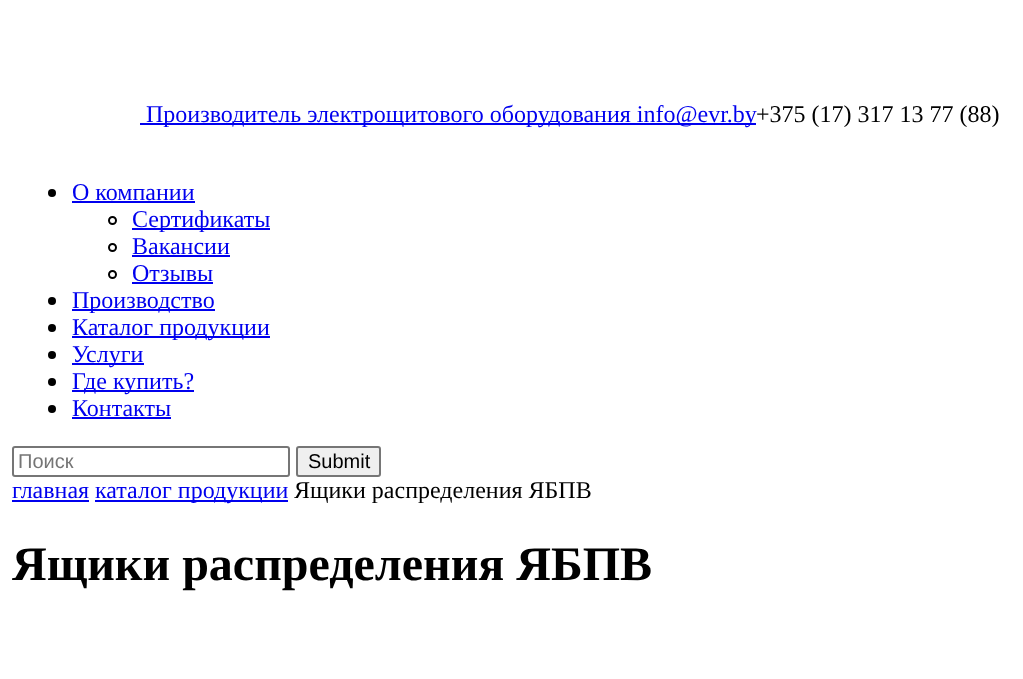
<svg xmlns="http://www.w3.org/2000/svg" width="1023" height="679">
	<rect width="100%" height="100%" fill="#FFFFFF" />
	<rect x="140" y="123" width="616" height="2" fill="#0000EE" />
	<text x="146" y="122" font-family="Liberation Serif" font-size="24" fill="#0000EE">Производитель электрощитового оборудования info@evr.by</text>
	<text x="756" y="122" font-family="Liberation Serif" font-size="24" fill="#000000">+375 (17) 317 13 77 (88)</text>
	<circle cx="52" cy="193" r="4" fill="#000000" />
	<text x="72" y="200" font-family="Liberation Serif" font-size="24" fill="#0000EE">О компании</text>
	<rect x="72" y="201" width="123" height="2" fill="#0000EE" />
	<circle cx="112.5" cy="220.5" r="3.5" fill="none" stroke="#000000" stroke-width="2" />
	<rect x="132" y="228" width="138" height="2" fill="#0000EE" />
	<text x="132" y="227" font-family="Liberation Serif" font-size="24" fill="#0000EE">Сертификаты</text>
	<circle cx="112.5" cy="247.5" r="3.5" fill="none" stroke="#000000" stroke-width="2" />
	<text x="132" y="254" font-family="Liberation Serif" font-size="24" fill="#0000EE">Вакансии</text>
	<rect x="132" y="255" width="98" height="2" fill="#0000EE" />
	<circle cx="112.5" cy="274.5" r="3.5" fill="none" stroke="#000000" stroke-width="2" />
	<text x="132" y="281" font-family="Liberation Serif" font-size="24" fill="#0000EE">Отзывы</text>
	<rect x="132" y="282" width="81" height="2" fill="#0000EE" />
	<circle cx="52" cy="301" r="4" fill="#000000" />
	<rect x="72" y="309" width="143" height="2" fill="#0000EE" />
	<text x="72" y="308" font-family="Liberation Serif" font-size="24" fill="#0000EE">Производство</text>
	<circle cx="52" cy="328" r="4" fill="#000000" />
	<rect x="72" y="336" width="198" height="2" fill="#0000EE" />
	<text x="72" y="335" font-family="Liberation Serif" font-size="24" fill="#0000EE">Каталог продукции</text>
	<circle cx="52" cy="355" r="4" fill="#000000" />
	<rect x="72" y="363" width="72" height="2" fill="#0000EE" />
	<text x="72" y="362" font-family="Liberation Serif" font-size="24" fill="#0000EE">Услуги</text>
	<circle cx="52" cy="382" r="4" fill="#000000" />
	<rect x="72" y="390" width="122" height="2" fill="#0000EE" />
	<text x="72" y="389" font-family="Liberation Serif" font-size="24" fill="#0000EE">Где купить?</text>
	<circle cx="52" cy="409" r="4" fill="#000000" />
	<text x="72" y="416" font-family="Liberation Serif" font-size="24" fill="#0000EE">Контакты</text>
	<rect x="72" y="417" width="99" height="2" fill="#0000EE" />
	<rect x="13" y="447" width="276" height="29" rx="2" fill="none" stroke="#767676" stroke-width="2" />
	<text x="18" y="468" font-family="Liberation Sans" font-size="20" fill="#757575">Поиск</text>
	<rect x="297" y="447" width="83" height="29" rx="2" fill="#EFEFEF" stroke="#767676" stroke-width="2" />
	<text x="308" y="468" font-family="Liberation Sans" font-size="20" fill="#000000">Submit</text>
	<text x="12" y="498" font-family="Liberation Serif" font-size="24" fill="#0000EE">главная</text>
	<rect x="12" y="500" width="77" height="2" fill="#0000EE" />
	<rect x="95" y="500" width="193" height="2" fill="#0000EE" />
	<text x="95" y="498" font-family="Liberation Serif" font-size="24" fill="#0000EE">каталог продукции</text>
	<text x="294" y="498" font-family="Liberation Serif" font-size="24" fill="#000000">Ящики распределения ЯБПВ</text>
	<text x="12" y="580" font-family="Liberation Serif" font-size="48" font-weight="700" fill="#000000">Ящики распределения ЯБПВ</text>
</svg>
